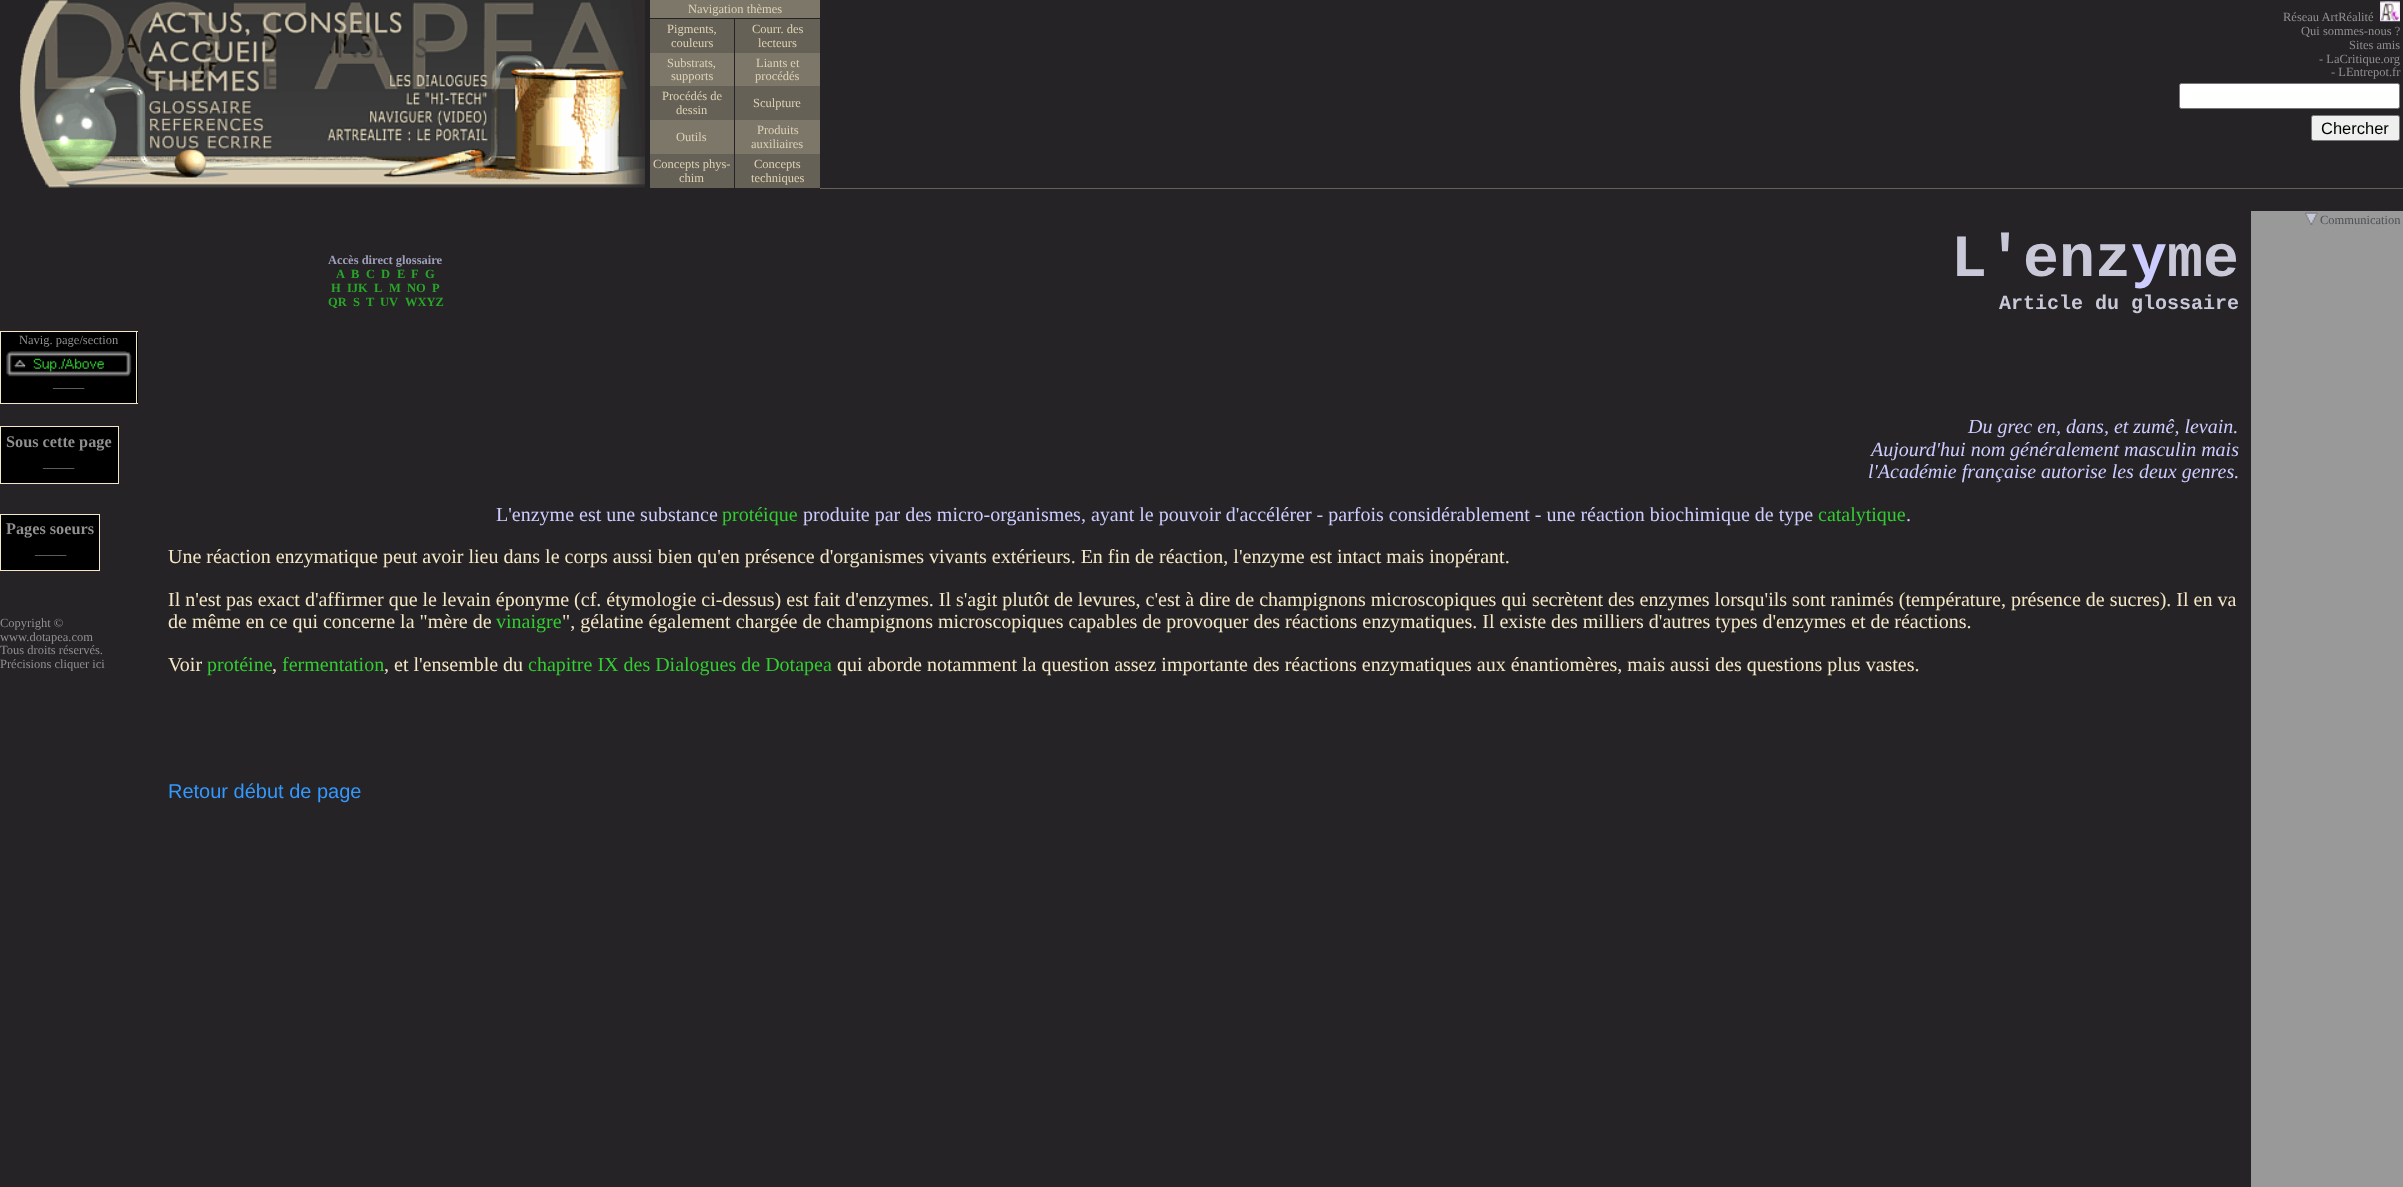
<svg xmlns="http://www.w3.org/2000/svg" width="2403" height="1187">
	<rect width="100%" height="100%" fill="#252325" />
	<image x="20" y="0" width="625" height="188" href="assets/img1.png" />
	<rect x="650" y="0" width="170" height="18" fill="#7D776A" />
	<text x="688" y="13" font-family="Liberation Serif" font-size="12.5" fill="#DED2B5">Navigation thèmes</text>
	<rect x="650" y="19" width="84" height="34" fill="#666156" />
	<g font-family="Liberation Serif" font-size="12.5" fill="#DED2B5">
		<text x="667" y="33">Pigments,</text>
		<text x="671" y="47">couleurs</text>
	</g>
	<rect x="735" y="19" width="85" height="34" fill="#666156" />
	<g font-family="Liberation Serif" font-size="12.5" fill="#DED2B5">
		<text x="752" y="33">Courr. des</text>
		<text x="758" y="47">lecteurs</text>
	</g>
	<rect x="650" y="53" width="84" height="33" fill="#7D776A" />
	<g font-family="Liberation Serif" font-size="12.5" fill="#DED2B5">
		<text x="667" y="67">Substrats,</text>
		<text x="671" y="80">supports</text>
	</g>
	<rect x="735" y="53" width="85" height="33" fill="#7D776A" />
	<g font-family="Liberation Serif" font-size="12.5" fill="#DED2B5">
		<text x="756" y="67">Liants et</text>
		<text x="755" y="80">procédés</text>
	</g>
	<rect x="650" y="86" width="84" height="34" fill="#666156" />
	<g font-family="Liberation Serif" font-size="12.5" fill="#DED2B5">
		<text x="662" y="100">Procédés de</text>
		<text x="676" y="114">dessin</text>
	</g>
	<rect x="735" y="86" width="85" height="34" fill="#666156" />
	<text x="753" y="107" font-family="Liberation Serif" font-size="12.5" fill="#DED2B5">Sculpture</text>
	<rect x="650" y="120" width="84" height="34" fill="#7D776A" />
	<text x="676" y="141" font-family="Liberation Serif" font-size="12.5" fill="#DED2B5">Outils</text>
	<rect x="735" y="120" width="85" height="34" fill="#7D776A" />
	<g font-family="Liberation Serif" font-size="12.5" fill="#DED2B5">
		<text x="757" y="134">Produits</text>
		<text x="751" y="148">auxiliaires</text>
	</g>
	<rect x="650" y="154" width="84" height="34" fill="#666156" />
	<g font-family="Liberation Serif" font-size="12.5" fill="#DED2B5">
		<text x="653" y="168">Concepts phys-</text>
		<text x="679" y="182">chim</text>
	</g>
	<rect x="735" y="154" width="85" height="34" fill="#666156" />
	<g font-family="Liberation Serif" font-size="12.5" fill="#DED2B5">
		<text x="754" y="168">Concepts</text>
		<text x="751" y="182">techniques</text>
	</g>
	<text x="2283" y="21" font-family="Liberation Serif" font-size="12.5" fill="#909090">Réseau ArtRéalité</text>
	<image x="2380" y="1" width="20" height="21" href="assets/img2.png" />
	<g font-family="Liberation Serif" font-size="12.5" fill="#909090">
		<text x="2301" y="35">Qui sommes-nous ?</text>
		<text x="2349" y="49">Sites amis</text>
		<text x="2319" y="63">- LaCritique.org</text>
		<text x="2331" y="76">- LEntrepot.fr</text>
	</g>
	<rect x="2179.5" y="83.5" width="220" height="25" rx="2" fill="#FFFFFF" stroke="#767676" />
	<rect x="2311.5" y="115.5" width="88" height="25" rx="2" fill="#EFEFEF" stroke="#767676" />
	<text x="2321" y="134" font-family="Liberation Sans" font-size="16.5" fill="#000000">Chercher</text>
	<rect x="820" y="188" width="1583" height="1" fill="#666156" />
	<rect x="1" y="332" width="137" height="71" fill="#000000" />
	<rect x="0" y="331" width="138" height="1" fill="#F4E7C6" />
	<rect x="136" y="331" width="1" height="73" fill="#F4E7C6" />
	<rect x="0" y="403" width="138" height="1" fill="#F4E7C6" />
	<rect x="0" y="331" width="1" height="73" fill="#F4E7C6" />
	<text x="19" y="344" font-family="Liberation Serif" font-size="12.5" fill="#909090">Navig. page/section</text>
	<image x="6" y="351" width="126" height="26" href="assets/img3.png" />
	<text x="53" y="387" font-family="Liberation Serif" font-size="12.5" fill="#909090">_____</text>
	<rect x="1" y="427" width="117" height="56" fill="#000000" />
	<rect x="0" y="426" width="119" height="1" fill="#F4E7C6" />
	<rect x="118" y="426" width="1" height="58" fill="#F4E7C6" />
	<rect x="0" y="483" width="119" height="1" fill="#F4E7C6" />
	<rect x="0" y="426" width="1" height="58" fill="#F4E7C6" />
	<text x="6" y="447" font-family="Liberation Serif" font-size="16.25" font-weight="700" fill="#909090">Sous cette page</text>
	<text x="43" y="467" font-family="Liberation Serif" font-size="12.5" fill="#909090">_____</text>
	<rect x="1" y="515" width="98" height="55" fill="#000000" />
	<rect x="0" y="514" width="100" height="1" fill="#F4E7C6" />
	<rect x="99" y="514" width="1" height="57" fill="#F4E7C6" />
	<rect x="0" y="570" width="100" height="1" fill="#F4E7C6" />
	<rect x="0" y="514" width="1" height="57" fill="#F4E7C6" />
	<text x="6" y="534" font-family="Liberation Serif" font-size="16.25" font-weight="700" fill="#909090">Pages soeurs</text>
	<g font-family="Liberation Serif" font-size="12.5" fill="#909090">
		<text x="35" y="554">_____</text>
		<text x="0" y="627">Copyright ©</text>
		<text x="0" y="641">www.dotapea.com</text>
		<text x="0" y="654">Tous droits réservés.</text>
		<text x="0" y="668">Précisions cliquer ici</text>
	</g>
	<rect x="2251" y="211" width="152" height="976" fill="#999999" />
	<image x="2305" y="212" width="13" height="13" href="assets/img4.png" />
	<text x="2320" y="224" font-family="Liberation Serif" font-size="12.5" fill="#515157">Communication</text>
	<text x="328" y="264" font-family="Liberation Serif" font-size="12.5" font-weight="700" fill="#9E9EBA">Accès direct glossaire</text>
	<g font-family="Liberation Serif" font-size="12.5" font-weight="700" fill="#29A529">
		<text x="336" y="278">A</text>
		<text x="351" y="278">B</text>
		<text x="366" y="278">C</text>
		<text x="381" y="278">D</text>
		<text x="397" y="278">E</text>
		<text x="411" y="278">F</text>
		<text x="425" y="278">G</text>
		<text x="331" y="292">H</text>
		<text x="347" y="292">IJK</text>
		<text x="374" y="292">L</text>
		<text x="389" y="292">M</text>
		<text x="407" y="292">NO</text>
		<text x="432" y="292">P</text>
		<text x="328" y="306">QR</text>
		<text x="353" y="306">S</text>
		<text x="366" y="306">T</text>
		<text x="380" y="306">UV</text>
		<text x="405" y="306">WXYZ</text>
	</g>
	<text x="1951" y="276" font-family="Liberation Mono" font-size="60" font-weight="700" fill="#C8C8D8">L'enz me</text>
	<text x="2131" y="276" font-family="Liberation Mono" font-size="60" font-weight="700" fill="#CCCCFF">y</text>
	<text x="1999" y="309" font-family="Liberation Mono" font-size="20" font-weight="700" fill="#C8C8D8">Article du glossaire</text>
	<g font-family="Liberation Serif" font-size="20" font-style="italic" fill="#CCCCFF">
		<text x="1968" y="433">Du grec en, dans, et zumê, levain.</text>
		<text x="1871" y="456">Aujourd'hui nom généralement masculin mais</text>
		<text x="1868" y="478">l'Académie française autorise les deux genres.</text>
	</g>
	<text x="496" y="521" font-family="Liberation Serif" font-size="20" fill="#CCCCFF">L'enzyme est une substance</text>
	<text x="722" y="521" font-family="Liberation Serif" font-size="20" fill="#33CC33">protéique</text>
	<text x="803" y="521" font-family="Liberation Serif" font-size="20" fill="#CCCCFF">produite par des micro-organismes, ayant le pouvoir d'accélérer - parfois considérablement - une réaction biochimique de type</text>
	<text x="1818" y="521" font-family="Liberation Serif" font-size="20" fill="#33CC33">catalytique</text>
	<text x="1906" y="521" font-family="Liberation Serif" font-size="20" fill="#CCCCFF">.</text>
	<g font-family="Liberation Serif" font-size="20" fill="#F4E7C6">
		<text x="168" y="563">Une réaction enzymatique peut avoir lieu dans le corps aussi bien qu'en présence d'organismes vivants extérieurs. En fin de réaction, l'enzyme est intact mais inopérant.</text>
		<text x="168" y="606">Il n'est pas exact d'affirmer que le levain éponyme (cf. étymologie ci-dessus) est fait d'enzymes. Il s'agit plutôt de levures, c'est à dire de champignons microscopiques qui secrètent des enzymes lorsqu'ils sont ranimés (température, présence de sucres). Il en va</text>
		<text x="168" y="628">de même en ce qui concerne la "mère de</text>
	</g>
	<text x="496" y="628" font-family="Liberation Serif" font-size="20" fill="#33CC33">vinaigre</text>
	<g font-family="Liberation Serif" font-size="20" fill="#F4E7C6">
		<text x="562" y="628">", gélatine également chargée de champignons microscopiques capables de provoquer des réactions enzymatiques. Il existe des milliers d'autres types d'enzymes et de réactions.</text>
		<text x="168" y="671">Voir</text>
	</g>
	<text x="207" y="671" font-family="Liberation Serif" font-size="20" fill="#33CC33">protéine</text>
	<text x="272" y="671" font-family="Liberation Serif" font-size="20" fill="#F4E7C6">,</text>
	<text x="282" y="671" font-family="Liberation Serif" font-size="20" fill="#33CC33">fermentation</text>
	<text x="384" y="671" font-family="Liberation Serif" font-size="20" fill="#F4E7C6">, et l'ensemble du</text>
	<text x="528" y="671" font-family="Liberation Serif" font-size="20" fill="#33CC33">chapitre IX des Dialogues de Dotapea</text>
	<text x="837" y="671" font-family="Liberation Serif" font-size="20" fill="#F4E7C6">qui aborde notamment la question assez importante des réactions enzymatiques aux énantiomères, mais aussi des questions plus vastes.</text>
	<text x="168" y="798" font-family="Liberation Sans" font-size="20" fill="#3399FF">Retour début de page</text>
</svg>
